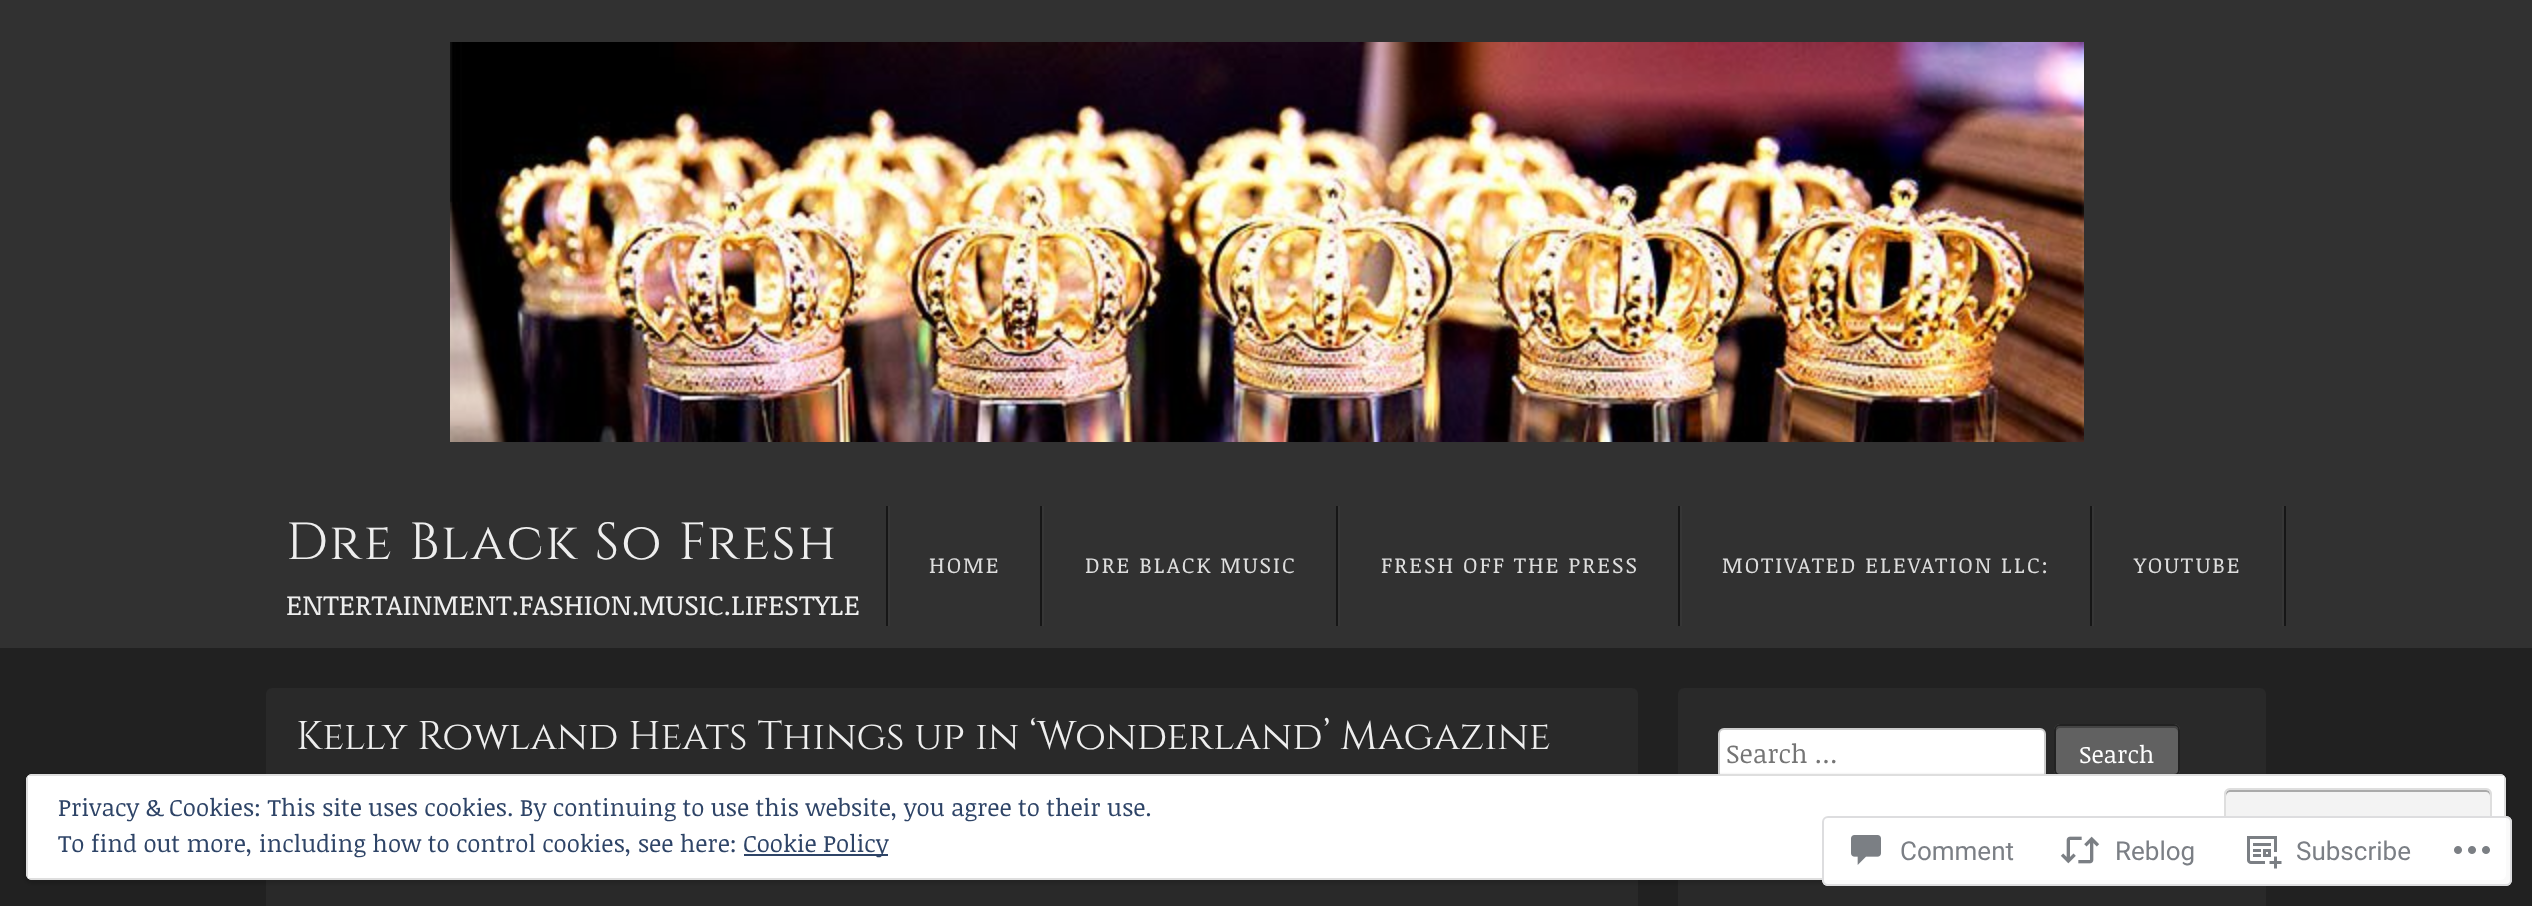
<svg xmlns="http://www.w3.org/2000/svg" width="2532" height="906">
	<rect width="100%" height="100%" fill="#212121" />
	<rect x="0" y="0" width="2532" height="648" fill="#313131" />
	<image x="450" y="42" width="1634" height="400" href="assets/img1.png" />
	<text x="286" y="559" font-family="Cinzel" font-size="52" letter-spacing="2" fill="#EEEEEE">Dre Black So Fresh</text>
	<text x="286" y="615" font-family="Noticia Text" font-size="28" fill="#EEEEEE">ENTERTAINMENT.FASHION.MUSIC.LIFESTYLE</text>
	<rect x="2284" y="506" width="2" height="120" fill="#161616" />
	<rect x="886" y="506" width="2" height="120" fill="#161616" />
	<rect x="888" y="506" width="2" height="120" fill="#363636" />
	<text x="929" y="573" font-family="Noticia Text" font-size="22" letter-spacing="2" fill="#DDDDDD">HOME</text>
	<rect x="1040" y="506" width="2" height="120" fill="#161616" />
	<rect x="1042" y="506" width="2" height="120" fill="#363636" />
	<text x="1085" y="573" font-family="Noticia Text" font-size="22" letter-spacing="2" fill="#DDDDDD">DRE BLACK MUSIC</text>
	<rect x="1336" y="506" width="2" height="120" fill="#161616" />
	<rect x="1338" y="506" width="2" height="120" fill="#363636" />
	<text x="1381" y="573" font-family="Noticia Text" font-size="22" letter-spacing="2" fill="#DDDDDD">FRESH OFF THE PRESS</text>
	<rect x="1678" y="506" width="2" height="120" fill="#161616" />
	<rect x="1680" y="506" width="2" height="120" fill="#363636" />
	<text x="1722" y="573" font-family="Noticia Text" font-size="22" letter-spacing="2" fill="#DDDDDD">MOTIVATED ELEVATION LLC:</text>
	<rect x="2090" y="506" width="2" height="120" fill="#161616" />
	<rect x="2282" y="506" width="2" height="120" fill="#363636" />
	<rect x="2092" y="506" width="2" height="120" fill="#363636" />
	<text x="2134" y="573" font-family="Noticia Text" font-size="22" letter-spacing="2" fill="#DDDDDD">YOUTUBE</text>
	<rect x="266" y="688" width="1372" height="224" rx="6" fill="#292929" />
	<text x="296" y="749" font-family="Cinzel" font-size="40" fill="#EEEEEE">Kelly Rowland Heats Things up in ‘Wonderland’ Magazine</text>
	<rect x="1678" y="688" width="588" height="130" rx="6" fill="#292929" />
	<rect x="1719" y="729" width="326" height="50" rx="5" fill="#FFFFFF" stroke="#CCCCCC" stroke-width="2" />
	<text x="1726" y="763" font-family="Noticia Text" font-size="26" fill="#757575">Search …</text>
	<rect x="2054" y="724" width="126" height="52" rx="6" fill="#616161" />
	<path d="M2060 728H2174C2176 728 2178 730 2178 732V730C2178 728 2176 726 2174 726H2060C2058 726 2056 728 2056 730V732C2056 730 2058 728 2060 728Z" fill="#444444" />
	<rect x="2055" y="725" width="124" height="50" rx="5" fill="none" stroke="#222222" stroke-width="2" />
	<text x="2079" y="763" font-family="Noticia Text" font-size="24" fill="#FFFFFF">Search</text>
	<rect x="1678" y="880" width="588" height="26" fill="#292929" />
	<rect x="24" y="774" width="2484" height="110" rx="8" fill="#000000" fill-opacity="0.1" filter="blur(1px)" />
	<rect x="26" y="774" width="2480" height="106" rx="6" fill="#FFFFFF" />
	<path d="M32 774C29 774 26 777 26 780V874C26 877 29 880 32 880H2500C2503 880 2506 877 2506 874V780C2506 777 2503 774 2500 774ZM28 776V878H2504V776Z" fill="#DEDEDE" fill-rule="evenodd" />
	<text x="58" y="816" font-family="Noticia Text" font-size="24" fill="#2E4467">Privacy &amp; Cookies: This site uses cookies. By continuing to use this website, you agree to their use.</text>
	<rect x="2224" y="788" width="268" height="78" rx="6" fill="#F3F3F3" />
	<path d="M2230 792H2486C2488 792 2490 794 2490 796C2490 793 2490 790 2486 790H2229C2226 791 2226 793 2226 796C2226 794 2228 792 2230 792Z" fill="#AAAAAA" />
	<rect x="2225" y="789" width="266" height="76" rx="5" fill="none" stroke="#DEDEDE" stroke-width="2" />
	<text x="58" y="852" font-family="Noticia Text" font-size="24" fill="#2E4467">To find out more, including how to control cookies, see here:</text>
	<rect x="744" y="854" width="144" height="2" fill="#2E4467" />
	<text x="743" y="852" font-family="Noticia Text" font-size="24" fill="#2E4467">Cookie Policy</text>
	<rect x="1822" y="816" width="690" height="70" rx="6" fill="#FFFFFF" fill-opacity="0.98" />
	<rect x="1823" y="817" width="688" height="68" rx="5" fill="none" stroke="#DCDCDE" stroke-opacity="0.98" stroke-width="2" />
	<image x="1851" y="835" width="30" height="30" href="assets/img2.png" />
	<text x="1900" y="860" font-family="Roboto" font-size="26" fill="#7B7F85">Comment</text>
	<image x="2060" y="836" width="40" height="28" href="assets/img3.png" />
	<text x="2115" y="860" font-family="Roboto" font-size="26" fill="#7B7F85">Reblog</text>
	<image x="2247" y="836" width="35" height="33" href="assets/img4.png" />
	<text x="2296" y="860" font-family="Roboto" font-size="26" fill="#7B7F85">Subscribe</text>
	<image x="2454" y="846" width="36" height="8" href="assets/img5.png" />
</svg>
